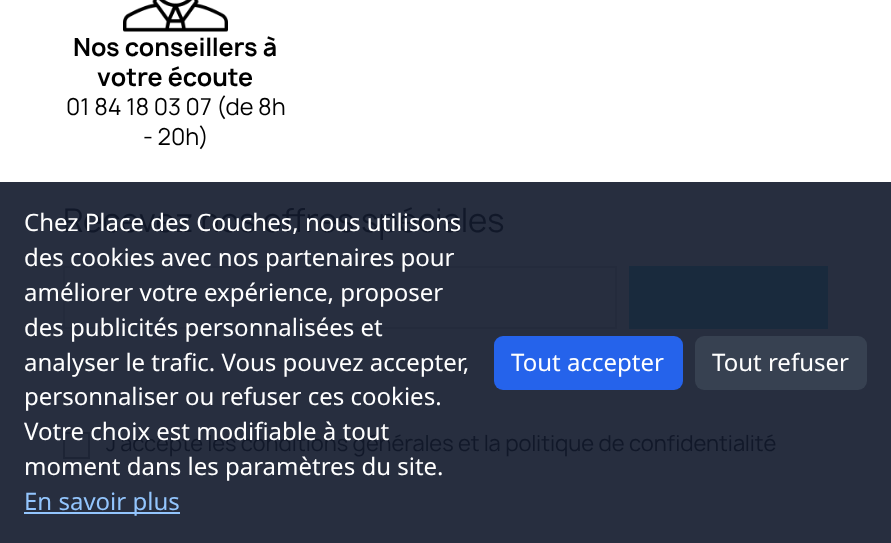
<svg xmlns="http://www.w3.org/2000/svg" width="891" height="543">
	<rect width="100%" height="100%" fill="#FFFFFF" />
	<rect x="0" y="182" width="891" height="361" fill="#272E3F" />
	<image x="123" y="0" width="105" height="32" href="assets/img1.png" />
	<g font-family="Manrope" font-size="24" font-weight="700" fill="#000000">
		<text x="73" y="56">Nos conseillers à</text>
		<text x="97" y="86">votre écoute</text>
	</g>
	<g font-family="Manrope" font-size="22.5" fill="#000000">
		<text x="66" y="115">01 84 18 03 07 (de 8h</text>
		<text x="143" y="145">- 20h)</text>
	</g>
	<text x="63" y="232" font-family="Manrope" font-size="31.5" fill="#111829">Recevez nos offres spéciales</text>
	<rect x="64" y="267" width="552" height="61" fill="none" stroke="#242B3C" stroke-width="2" />
	<rect x="629" y="266" width="199" height="63" fill="#192A3D" />
	<rect x="64" y="433" width="25" height="25" fill="none" stroke="#1D2435" stroke-width="2" />
	<text x="106" y="451" font-family="Manrope" font-size="21" fill="#111829">J'accepte les conditions générales et la politique de confidentialité</text>
	<g font-family="Noto Sans" font-size="24" fill="#FFFFFF">
		<text x="24" y="231">Chez Place des Couches, nous utilisons</text>
		<text x="24" y="266">des cookies avec nos partenaires pour</text>
		<text x="24" y="301">améliorer votre expérience, proposer</text>
		<text x="24" y="336">des publicités personnalisées et</text>
		<text x="24" y="371">analyser le trafic. Vous pouvez accepter,</text>
		<text x="24" y="405">personnaliser ou refuser ces cookies.</text>
		<text x="24" y="440">Votre choix est modifiable à tout</text>
		<text x="24" y="475">moment dans les paramètres du site.</text>
	</g>
	<rect x="24" y="512" width="156" height="2" fill="#93C5FD" />
	<text x="24" y="510" font-family="Noto Sans" font-size="24" fill="#93C5FD">En savoir plus</text>
	<rect x="494" y="336" width="189" height="54" rx="9" fill="#2563EB" />
	<text x="511" y="371" font-family="Noto Sans" font-size="24" fill="#FFFFFF">Tout accepter</text>
	<rect x="695" y="336" width="172" height="54" rx="9" fill="#374151" />
	<text x="712" y="371" font-family="Noto Sans" font-size="24" fill="#FFFFFF">Tout refuser</text>
</svg>
